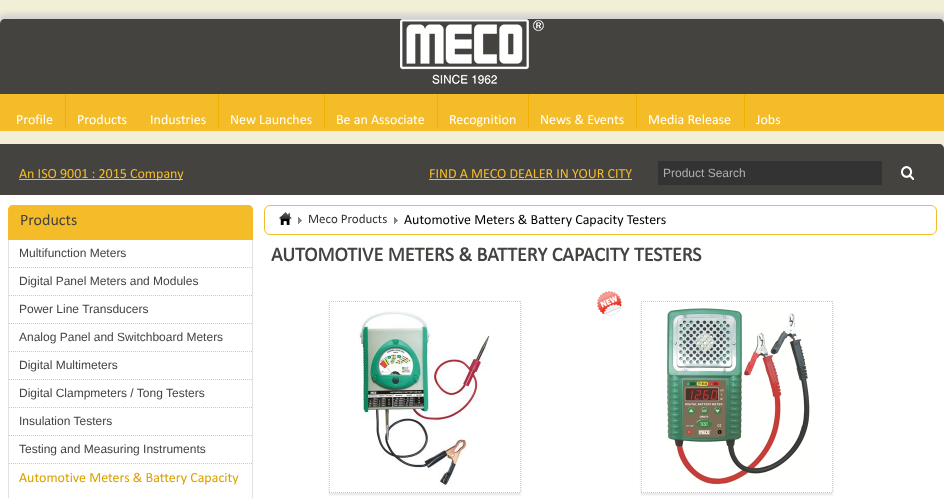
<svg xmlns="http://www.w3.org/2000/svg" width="944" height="498">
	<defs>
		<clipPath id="clip1"><path d="M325 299H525V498H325ZM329 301H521V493H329Z" clip-rule="evenodd" /></clipPath>
		<clipPath id="clip2"><path d="M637 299H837V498H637ZM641 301H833V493H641Z" clip-rule="evenodd" /></clipPath>
	</defs>
	<rect width="100%" height="100%" fill="#F3EED6" />
	<rect x="-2" y="14" width="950" height="81" rx="8" fill="#D3D3D3" filter="blur(2.5px)" />
	<path d="M5 19H939C942 19 944 21 944 24V94H0V24C0 21 2 19 5 19Z" fill="#454340" />
	<image x="400" y="19" width="144" height="65" href="assets/img1.png" />
	<rect x="0" y="94" width="944" height="37" fill="#F4BC28" />
	<text x="16" y="124" font-family="Calibri" font-size="14" fill="#FFFFFF">Profile</text>
	<rect x="65" y="94" width="1" height="34" fill="#F1AF00" />
	<g font-family="Calibri" font-size="14" fill="#FFFFFF">
		<text x="77" y="124">Products</text>
		<text x="150" y="124">Industries</text>
	</g>
	<rect x="218" y="94" width="1" height="34" fill="#F1AF00" />
	<text x="230" y="124" font-family="Calibri" font-size="14" fill="#FFFFFF">New Launches</text>
	<rect x="324" y="94" width="1" height="34" fill="#F1AF00" />
	<text x="336" y="124" font-family="Calibri" font-size="14" fill="#FFFFFF">Be an Associate</text>
	<rect x="437" y="94" width="1" height="34" fill="#F1AF00" />
	<text x="449" y="124" font-family="Calibri" font-size="14" fill="#FFFFFF">Recognition</text>
	<rect x="528" y="94" width="1" height="34" fill="#F1AF00" />
	<text x="540" y="124" font-family="Calibri" font-size="14" fill="#FFFFFF">News &amp; Events</text>
	<rect x="636" y="94" width="1" height="34" fill="#F1AF00" />
	<text x="648" y="124" font-family="Calibri" font-size="14" fill="#FFFFFF">Media Release</text>
	<rect x="744" y="94" width="1" height="34" fill="#F1AF00" />
	<text x="756" y="124" font-family="Calibri" font-size="14" fill="#FFFFFF">Jobs</text>
	<path d="M0 144H939C942 144 944 146 944 149V195H0Z" fill="#454340" />
	<rect x="19" y="179" width="164" height="1" fill="#F4BC28" />
	<g font-family="Calibri" font-size="14" fill="#F4BC28">
		<text x="19" y="178">An ISO 9001 : 2015 Company</text>
		<text x="429" y="178">FIND A MECO DEALER IN YOUR CITY</text>
	</g>
	<rect x="429" y="179" width="203" height="1" fill="#F4BC28" />
	<rect x="658" y="161" width="224" height="24" fill="#333333" />
	<text x="663" y="177" font-family="Liberation Sans" font-size="12" fill="#AFAFAF">Product Search</text>
	<image x="901" y="166" width="13" height="14" href="assets/img2.png" />
	<rect x="0" y="195" width="944" height="303" fill="#FFFFFF" />
	<path d="M13 205H248C251 205 253 207 253 210V240H8V210C8 207 10 205 13 205Z" fill="#F4BC28" />
	<text x="20" y="225" font-family="Calibri" font-size="16" fill="#454340">Products</text>
	<path d="M8 240H253V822C253 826 249 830 245 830H16C12 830 8 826 8 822ZM9 240H252V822C252 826 249 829 245 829H16C12 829 9 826 9 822Z" fill="#E2E2E2" fill-rule="evenodd" />
	<path d="M9 267.5H252" fill="none" stroke="#BDCFB5" stroke-dasharray="1 1" />
	<text x="19" y="257" font-family="Liberation Sans" font-size="12" fill="#454340">Multifunction Meters</text>
	<path d="M9 295.5H252" fill="none" stroke="#BDCFB5" stroke-dasharray="1 1" />
	<text x="19" y="285" font-family="Liberation Sans" font-size="12" fill="#454340">Digital Panel Meters and Modules</text>
	<path d="M9 323.5H252" fill="none" stroke="#BDCFB5" stroke-dasharray="1 1" />
	<text x="19" y="313" font-family="Liberation Sans" font-size="12" fill="#454340">Power Line Transducers</text>
	<path d="M9 351.5H252" fill="none" stroke="#BDCFB5" stroke-dasharray="1 1" />
	<text x="19" y="341" font-family="Liberation Sans" font-size="12" fill="#454340">Analog Panel and Switchboard Meters</text>
	<path d="M9 379.5H252" fill="none" stroke="#BDCFB5" stroke-dasharray="1 1" />
	<text x="19" y="369" font-family="Liberation Sans" font-size="12" fill="#454340">Digital Multimeters</text>
	<path d="M9 407.5H252" fill="none" stroke="#BDCFB5" stroke-dasharray="1 1" />
	<text x="19" y="397" font-family="Liberation Sans" font-size="12" fill="#454340">Digital Clampmeters / Tong Testers</text>
	<path d="M9 435.5H252" fill="none" stroke="#BDCFB5" stroke-dasharray="1 1" />
	<text x="19" y="425" font-family="Liberation Sans" font-size="12" fill="#454340">Insulation Testers</text>
	<path d="M9 463.5H252" fill="none" stroke="#BDCFB5" stroke-dasharray="1 1" />
	<text x="19" y="453" font-family="Liberation Sans" font-size="12" fill="#454340">Testing and Measuring Instruments</text>
	<text x="19" y="482" font-family="Calibri" font-size="14" fill="#DCA000">Automotive Meters &amp; Battery Capacity</text>
	<rect x="264.5" y="205.5" width="672" height="29" rx="5.5" fill="none" stroke="#F4BC28" />
	<image x="279" y="212" width="13" height="13" href="assets/img3.png" />
	<image x="298" y="217" width="4" height="7" href="assets/img4.png" />
	<text x="308" y="223" font-family="Calibri" font-size="13" fill="#333333">Meco Products</text>
	<image x="394" y="217" width="4" height="7" href="assets/img4.png" />
	<text x="404" y="224" font-family="Calibri" font-size="14" fill="#000000">Automotive Meters &amp; Battery Capacity Testers</text>
	<text x="271" y="261" font-family="Calibri" font-size="20" font-weight="700" fill="#454340">AUTOMOTIVE METERS &amp; BATTERY CAPACITY TESTERS</text>
	<g clip-path="url(#clip1)">
		<rect x="329" y="303" width="192" height="192" fill="#000000" fill-opacity="0.1" filter="blur(1px)" />
	</g>
	<path d="M329 301.5H521" fill="none" stroke="#CCCCCC" stroke-dasharray="1 1" />
	<path d="M329.5 301V493" fill="none" stroke="#CCCCCC" stroke-dasharray="1 1" />
	<image x="359" y="311" width="132" height="176" href="assets/img5.png" />
	<path d="M520.5 301V493" fill="none" stroke="#CCCCCC" stroke-dasharray="1 1" />
	<path d="M329 492.5H521" fill="none" stroke="#CCCCCC" stroke-dasharray="1 1" />
	<image x="597" y="291" width="25" height="25" href="assets/img6.png" />
	<g clip-path="url(#clip2)">
		<rect x="641" y="303" width="192" height="192" fill="#000000" fill-opacity="0.1" filter="blur(1px)" />
	</g>
	<path d="M641 301.5H833" fill="none" stroke="#CCCCCC" stroke-dasharray="1 1" />
	<path d="M641.5 301V493" fill="none" stroke="#CCCCCC" stroke-dasharray="1 1" />
	<image x="666" y="308" width="144" height="177" href="assets/img7.png" />
	<path d="M832.5 301V493" fill="none" stroke="#CCCCCC" stroke-dasharray="1 1" />
	<path d="M641 492.5H833" fill="none" stroke="#CCCCCC" stroke-dasharray="1 1" />
</svg>
